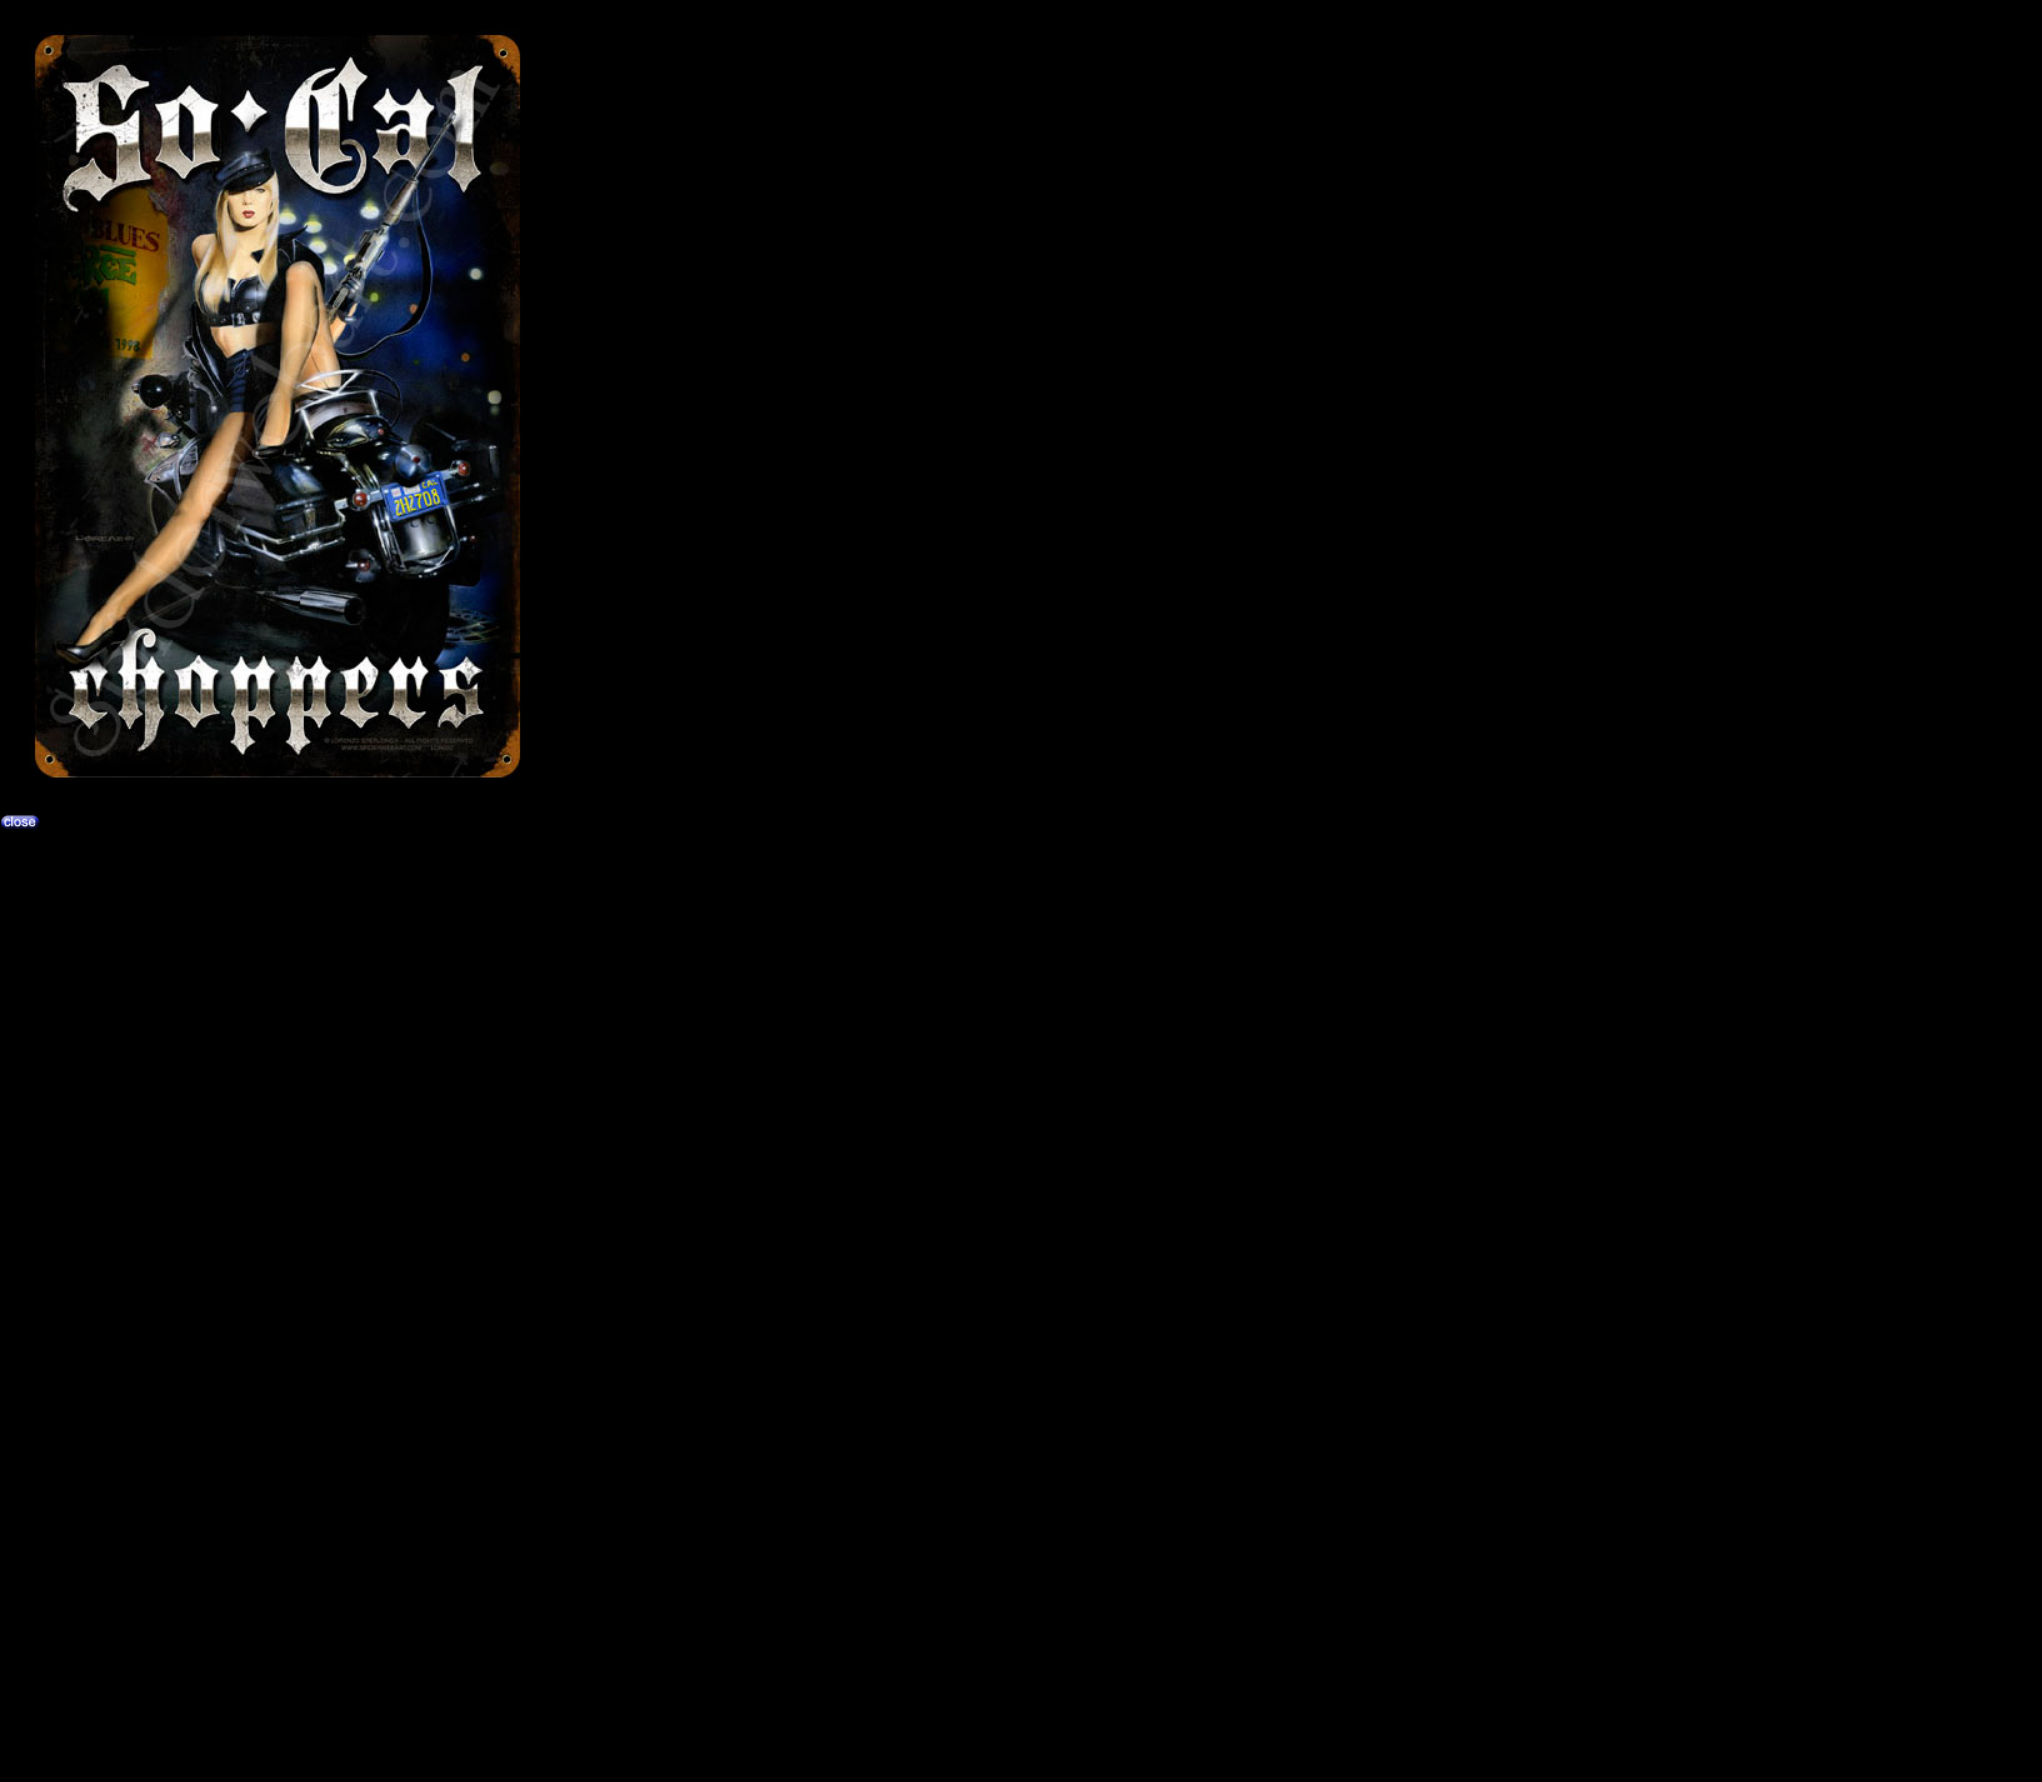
<svg xmlns="http://www.w3.org/2000/svg" width="2042" height="1782">
	<rect width="100%" height="100%" fill="#000000" />
	<image x="30" y="30" width="491" height="750" href="assets/img1.png" />
	<image x="1" y="814" width="39" height="15" href="assets/img2.png" />
</svg>
